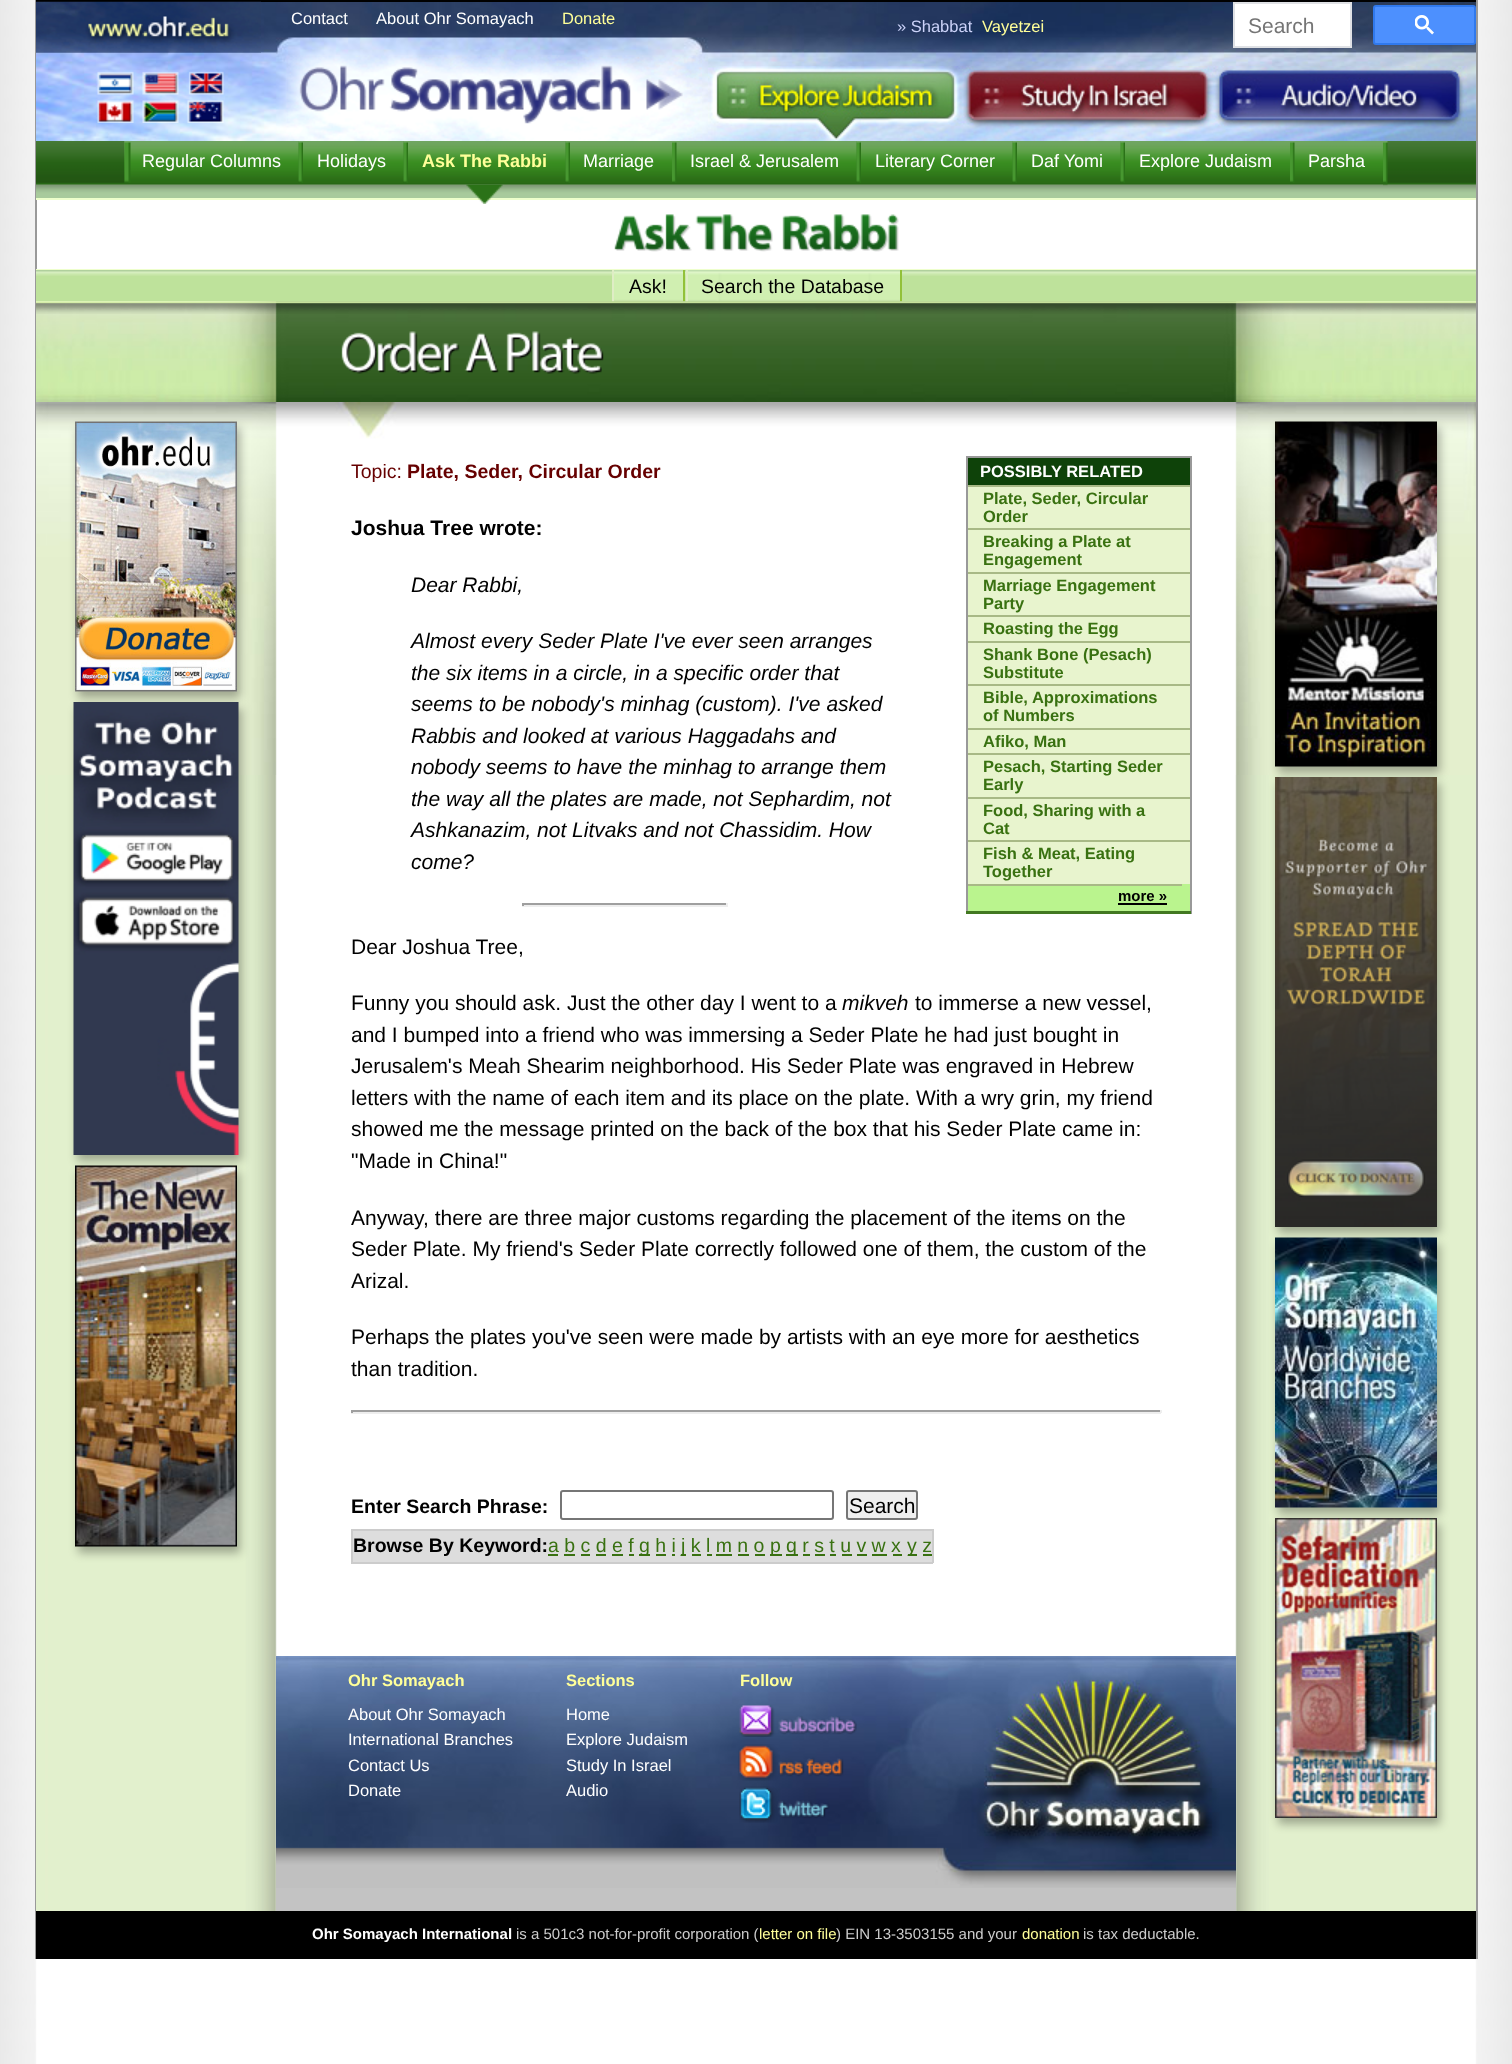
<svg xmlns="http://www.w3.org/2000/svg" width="1512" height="2064">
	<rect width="100%" height="100%" fill="#FFFFFF" />
	<image x="0" y="0" width="1512" height="2064" href="assets/img1.png" />
	<rect x="1476" y="0" width="2" height="1959" fill="#999999" />
	<rect x="35" y="0" width="2" height="1959" fill="#999999" />
	<image x="36" y="2" width="1440" height="139" href="assets/img2.png" />
	<rect x="36" y="0" width="1440" height="2" fill="#000000" />
	<image x="36" y="1" width="225" height="52" href="assets/img3.png" />
	<g font-family="Liberation Sans" font-size="16.5" fill="#FFFFFF">
		<text x="291" y="24">Contact</text>
		<text x="376" y="24">About Ohr Somayach</text>
	</g>
	<text x="562" y="24" font-family="Liberation Sans" font-size="16.5" fill="#FFFF99">Donate</text>
	<text x="897" y="32" font-family="Liberation Sans" font-size="16.5" fill="#CCD3F9">» Shabbat</text>
	<text x="982" y="32" font-family="Liberation Sans" font-size="16.5" fill="#FFFF99">Vayetzei</text>
	<rect x="1234" y="3" width="117" height="44" fill="#FFFFFF" stroke="#DFE1E5" stroke-width="2" />
	<text x="1248" y="33" font-family="Liberation Sans" font-size="21" fill="#757575">Search</text>
	<rect x="1374" y="6" width="101" height="38" rx="2" fill="#4D90FE" stroke="#3079ED" stroke-width="2" />
	<image x="1415" y="15" width="19" height="20" href="assets/img4.png" />
	<image x="96" y="70" width="129" height="53" href="assets/img5.png" />
	<image x="286" y="55" width="416" height="86" href="assets/img6.png" />
	<image x="961" y="66" width="253" height="75" href="assets/img8.png" />
	<image x="708" y="66" width="254" height="75" href="assets/img7.png" />
	<image x="1213" y="66" width="254" height="75" href="assets/img9.png" />
	<image x="36" y="141" width="1440" height="57" href="assets/img10.png" />
	<image x="124" y="141" width="175" height="42" href="assets/img11.png" />
	<image x="124" y="141" width="7" height="42" href="assets/img12.png" />
	<text x="142" y="167" font-family="Liberation Sans" font-size="18" fill="#FFFFFF">Regular Columns</text>
	<image x="298" y="141" width="106" height="42" href="assets/img13.png" />
	<image x="298" y="141" width="5" height="42" href="assets/img14.png" />
	<text x="317" y="167" font-family="Liberation Sans" font-size="18" fill="#FFFFFF">Holidays</text>
	<image x="403" y="141" width="163" height="42" href="assets/img15.png" />
	<rect x="36" y="198" width="1440" height="2" fill="#EEFFCC" />
	<image x="466" y="184" width="37" height="20" href="assets/img16.png" />
	<image x="403" y="141" width="5" height="42" href="assets/img14.png" />
	<text x="422" y="167" font-family="Liberation Sans" font-size="18" font-weight="700" fill="#FFFF99">Ask The Rabbi</text>
	<image x="565" y="141" width="107" height="42" href="assets/img17.png" />
	<image x="565" y="141" width="5" height="42" href="assets/img18.png" />
	<text x="583" y="167" font-family="Liberation Sans" font-size="18" fill="#FFFFFF">Marriage</text>
	<image x="672" y="141" width="185" height="42" href="assets/img19.png" />
	<image x="672" y="142" width="5" height="41" href="assets/img20.png" />
	<text x="690" y="167" font-family="Liberation Sans" font-size="18" fill="#FFFFFF">Israel &amp; Jerusalem</text>
	<image x="856" y="141" width="157" height="42" href="assets/img21.png" />
	<image x="856" y="141" width="5" height="42" href="assets/img22.png" />
	<text x="875" y="167" font-family="Liberation Sans" font-size="18" fill="#FFFFFF">Literary Corner</text>
	<image x="1012" y="141" width="109" height="42" href="assets/img23.png" />
	<image x="1012" y="141" width="5" height="42" href="assets/img22.png" />
	<text x="1031" y="167" font-family="Liberation Sans" font-size="18" fill="#FFFFFF">Daf Yomi</text>
	<image x="1120" y="141" width="170" height="42" href="assets/img24.png" />
	<image x="1120" y="141" width="5" height="42" href="assets/img14.png" />
	<text x="1139" y="167" font-family="Liberation Sans" font-size="18" fill="#FFFFFF">Explore Judaism</text>
	<image x="1290" y="141" width="93" height="42" href="assets/img25.png" />
	<image x="1290" y="142" width="5" height="41" href="assets/img26.png" />
	<text x="1308" y="167" font-family="Liberation Sans" font-size="18" fill="#FFFFFF">Parsha</text>
	<image x="1383" y="141" width="5" height="45" href="assets/img27.png" />
	<rect x="36" y="269" width="1440" height="1" fill="#EEFFCC" />
	<image x="614" y="214" width="78" height="38" href="assets/img28.png" />
	<image x="695" y="214" width="78" height="38" href="assets/img29.png" />
	<image x="782" y="214" width="117" height="38" href="assets/img30.png" />
	<rect x="36" y="276" width="1440" height="26" fill="#BEE29B" />
	<image x="36" y="270" width="1440" height="6" href="assets/img31.png" />
	<image x="614" y="270" width="69" height="32" href="assets/img32.png" />
	<rect x="683" y="270" width="2" height="32" fill="#92C139" />
	<rect x="612" y="270" width="2" height="32" fill="#DFEDC5" />
	<text x="629" y="293" font-family="Liberation Sans" font-size="19.5" fill="#000000">Ask!</text>
	<image x="685" y="270" width="215" height="32" href="assets/img33.png" />
	<rect x="900" y="270" width="2" height="32" fill="#92C139" />
	<rect x="686" y="270" width="2" height="32" fill="#DFEDC5" />
	<text x="701" y="293" font-family="Liberation Sans" font-size="19.5" fill="#000000">Search the Database</text>
	<image x="36" y="301" width="1440" height="1610" href="assets/img34.png" />
	<image x="36" y="301" width="1440" height="101" href="assets/img35.png" />
	<image x="36" y="301" width="1440" height="13" href="assets/img36.png" />
	<image x="341" y="331" width="119" height="43" href="assets/img37.png" />
	<image x="464" y="332" width="35" height="41" href="assets/img38.png" />
	<image x="506" y="331" width="98" height="43" href="assets/img39.png" />
	<image x="36" y="402" width="1440" height="373" href="assets/img40.png" />
	<rect x="78" y="428" width="162" height="270" fill="#000000" fill-opacity="0.3" filter="blur(5px)" />
	<image x="75" y="421" width="162" height="271" href="assets/img41.png" />
	<rect x="77" y="708" width="165" height="453" fill="#000000" fill-opacity="0.3" filter="blur(5px)" />
	<image x="73" y="702" width="166" height="453" href="assets/img42.png" />
	<rect x="78" y="1172" width="162" height="381" fill="#000000" fill-opacity="0.3" filter="blur(5px)" />
	<image x="75" y="1165" width="162" height="382" href="assets/img43.png" />
	<text x="351" y="478" font-family="Liberation Sans" font-size="19.5" fill="#660000">Topic:</text>
	<text x="407" y="478" font-family="Liberation Sans" font-size="19.5" font-weight="700" fill="#660000">Plate, Seder, Circular Order</text>
	<rect x="968" y="487" width="222" height="397" fill="#E8F4CE" />
	<rect x="966" y="456" width="225" height="2" fill="#999999" />
	<rect x="1190" y="456" width="2" height="458" fill="#999999" />
	<rect x="966" y="456" width="2" height="458" fill="#999999" />
	<rect x="966" y="911" width="225" height="3" fill="#427821" />
	<rect x="968" y="458" width="222" height="27" fill="#0E4209" />
	<text x="980" y="477" font-family="Liberation Sans" font-size="16.5" font-weight="700" fill="#FFFFFF">POSSIBLY RELATED</text>
	<rect x="968" y="485" width="222" height="2" fill="#A8B986" />
	<g font-family="Liberation Sans" font-size="16.5" font-weight="700" fill="#397111">
		<text x="983" y="504">Plate, Seder, Circular</text>
		<text x="983" y="522">Order</text>
	</g>
	<rect x="968" y="528" width="222" height="2" fill="#A8B986" />
	<g font-family="Liberation Sans" font-size="16.5" font-weight="700" fill="#397111">
		<text x="983" y="547">Breaking a Plate at</text>
		<text x="983" y="565">Engagement</text>
	</g>
	<rect x="968" y="572" width="222" height="2" fill="#A8B986" />
	<g font-family="Liberation Sans" font-size="16.5" font-weight="700" fill="#397111">
		<text x="983" y="591">Marriage Engagement</text>
		<text x="983" y="609">Party</text>
	</g>
	<rect x="968" y="615" width="222" height="2" fill="#A8B986" />
	<text x="983" y="634" font-family="Liberation Sans" font-size="16.5" font-weight="700" fill="#397111">Roasting the Egg</text>
	<rect x="968" y="641" width="222" height="2" fill="#A8B986" />
	<g font-family="Liberation Sans" font-size="16.5" font-weight="700" fill="#397111">
		<text x="983" y="660">Shank Bone (Pesach)</text>
		<text x="983" y="678">Substitute</text>
	</g>
	<rect x="968" y="684" width="222" height="2" fill="#A8B986" />
	<g font-family="Liberation Sans" font-size="16.5" font-weight="700" fill="#397111">
		<text x="983" y="703">Bible, Approximations</text>
		<text x="983" y="721">of Numbers</text>
	</g>
	<rect x="968" y="728" width="222" height="2" fill="#A8B986" />
	<text x="983" y="747" font-family="Liberation Sans" font-size="16.5" font-weight="700" fill="#397111">Afiko, Man</text>
	<rect x="968" y="753" width="222" height="2" fill="#A8B986" />
	<g font-family="Liberation Sans" font-size="16.5" font-weight="700" fill="#397111">
		<text x="983" y="772">Pesach, Starting Seder</text>
		<text x="983" y="790">Early</text>
	</g>
	<rect x="968" y="797" width="222" height="2" fill="#A8B986" />
	<g font-family="Liberation Sans" font-size="16.5" font-weight="700" fill="#397111">
		<text x="983" y="816">Food, Sharing with a</text>
		<text x="983" y="834">Cat</text>
	</g>
	<rect x="968" y="840" width="222" height="2" fill="#A8B986" />
	<g font-family="Liberation Sans" font-size="16.5" font-weight="700" fill="#397111">
		<text x="983" y="859">Fish &amp; Meat, Eating</text>
		<text x="983" y="877">Together</text>
	</g>
	<rect x="968" y="884" width="222" height="27" fill="#BAF48E" />
	<rect x="968" y="884" width="214" height="2" fill="#A8B986" />
	<text x="1118" y="901" font-family="Liberation Sans" font-size="15" font-weight="700" fill="#000000">more »</text>
	<rect x="1118" y="903" width="49" height="2" fill="#000000" />
	<text x="351" y="535" font-family="Liberation Sans" font-size="21" font-weight="700" fill="#000000">Joshua Tree wrote:</text>
	<g font-family="Liberation Sans" font-size="21" font-style="italic" fill="#000000">
		<text x="411" y="592">Dear Rabbi,</text>
		<text x="411" y="648">Almost every Seder Plate I've ever seen arranges</text>
		<text x="411" y="680">the six items in a circle, in a specific order that</text>
		<text x="411" y="711">seems to be nobody's minhag (custom). I've asked</text>
		<text x="411" y="743">Rabbis and looked at various Haggadahs and</text>
		<text x="411" y="774">nobody seems to have the minhag to arrange them</text>
		<text x="411" y="806">the way all the plates are made, not Sephardim, not</text>
		<text x="411" y="837">Ashkanazim, not Litvaks and not Chassidim. How</text>
		<text x="411" y="869">come?</text>
	</g>
	<rect x="522" y="903" width="206" height="2" fill="#9F9F9F" />
	<rect x="726" y="903" width="2" height="3" fill="#EEEEEE" />
	<rect x="522" y="905" width="206" height="2" fill="#EEEEEE" />
	<rect x="522" y="903" width="2" height="3" fill="#9F9F9F" />
	<g font-family="Liberation Sans" font-size="21" fill="#000000">
		<text x="351" y="954">Dear Joshua Tree,</text>
		<text x="351" y="1010">Funny you should ask. Just the other day I went to a</text>
	</g>
	<text x="842" y="1010" font-family="Liberation Sans" font-size="21" font-style="italic" fill="#000000">mikveh</text>
	<g font-family="Liberation Sans" font-size="21" fill="#000000">
		<text x="915" y="1010">to immerse a new vessel,</text>
		<text x="351" y="1042">and I bumped into a friend who was immersing a Seder Plate he had just bought in</text>
		<text x="351" y="1073">Jerusalem's Meah Shearim neighborhood. His Seder Plate was engraved in Hebrew</text>
		<text x="351" y="1105">letters with the name of each item and its place on the plate. With a wry grin, my friend</text>
		<text x="351" y="1136">showed me the message printed on the back of the box that his Seder Plate came in:</text>
		<text x="351" y="1168">"Made in China!"</text>
		<text x="351" y="1225">Anyway, there are three major customs regarding the placement of the items on the</text>
		<text x="351" y="1256">Seder Plate. My friend's Seder Plate correctly followed one of them, the custom of the</text>
		<text x="351" y="1288">Arizal.</text>
		<text x="351" y="1344">Perhaps the plates you've seen were made by artists with an eye more for aesthetics</text>
		<text x="351" y="1376">than tradition.</text>
	</g>
	<rect x="351" y="1410" width="810" height="2" fill="#9F9F9F" />
	<rect x="1160" y="1410" width="2" height="3" fill="#EEEEEE" />
	<rect x="351" y="1412" width="810" height="2" fill="#EEEEEE" />
	<rect x="351" y="1410" width="2" height="3" fill="#9F9F9F" />
	<text x="351" y="1513" font-family="Liberation Sans" font-size="19.5" font-weight="700" fill="#000000">Enter Search Phrase:</text>
	<rect x="561" y="1491" width="272" height="28" rx="2" fill="none" stroke="#767676" stroke-width="2" />
	<rect x="847" y="1491" width="70" height="28" rx="2" fill="#EFEFEF" stroke="#767676" stroke-width="2" />
	<text x="849" y="1513" font-family="Liberation Sans" font-size="21" fill="#000000">Search</text>
	<rect x="351" y="1529" width="582" height="2" fill="#CCCCCC" />
	<rect x="932" y="1529" width="2" height="34" fill="#CCCCCC" />
	<rect x="351" y="1562" width="582" height="2" fill="#CCCCCC" />
	<rect x="351" y="1529" width="2" height="34" fill="#CCCCCC" />
	<rect x="353" y="1531" width="579" height="31" fill="#DDDDDD" />
	<text x="353" y="1552" font-family="Liberation Sans" font-size="19.5" font-weight="700" fill="#000000">Browse By Keyword:</text>
	<text x="548" y="1552" font-family="Liberation Sans" font-size="19.5" fill="#397111">a b c d e f</text>
	<rect x="548" y="1554" width="10" height="2" fill="#397111" />
	<rect x="564" y="1554" width="11" height="2" fill="#397111" />
	<rect x="581" y="1554" width="9" height="2" fill="#397111" />
	<rect x="596" y="1554" width="10" height="2" fill="#397111" />
	<rect x="612" y="1554" width="11" height="2" fill="#397111" />
	<rect x="629" y="1554" width="5" height="2" fill="#397111" />
	<rect x="639" y="1554" width="11" height="2" fill="#397111" />
	<text x="639" y="1552" font-family="Liberation Sans" font-size="19.5" fill="#397111">g h i</text>
	<rect x="656" y="1554" width="10" height="2" fill="#397111" />
	<rect x="672" y="1554" width="3" height="2" fill="#397111" />
	<rect x="681" y="1554" width="5" height="2" fill="#397111" />
	<text x="681" y="1552" font-family="Liberation Sans" font-size="19.5" fill="#397111">j k l m n o</text>
	<rect x="692" y="1554" width="9" height="2" fill="#397111" />
	<rect x="707" y="1554" width="5" height="2" fill="#397111" />
	<rect x="716" y="1554" width="16" height="2" fill="#397111" />
	<rect x="738" y="1554" width="11" height="2" fill="#397111" />
	<rect x="755" y="1554" width="10" height="2" fill="#397111" />
	<rect x="770" y="1554" width="12" height="2" fill="#397111" />
	<text x="770" y="1552" font-family="Liberation Sans" font-size="19.5" fill="#397111">p</text>
	<rect x="786" y="1554" width="12" height="2" fill="#397111" />
	<text x="786" y="1552" font-family="Liberation Sans" font-size="19.5" fill="#397111">q r s t u v w x</text>
	<rect x="803" y="1554" width="7" height="2" fill="#397111" />
	<rect x="815" y="1554" width="10" height="2" fill="#397111" />
	<rect x="830" y="1554" width="6" height="2" fill="#397111" />
	<rect x="842" y="1554" width="10" height="2" fill="#397111" />
	<rect x="857" y="1554" width="10" height="2" fill="#397111" />
	<rect x="872" y="1554" width="15" height="2" fill="#397111" />
	<rect x="893" y="1554" width="9" height="2" fill="#397111" />
	<rect x="908" y="1554" width="9" height="2" fill="#397111" />
	<text x="907" y="1552" font-family="Liberation Sans" font-size="19.5" fill="#397111">y z</text>
	<rect x="923" y="1554" width="9" height="2" fill="#397111" />
	<rect x="1278" y="428" width="162" height="345" fill="#000000" fill-opacity="0.3" filter="blur(5px)" />
	<image x="1275" y="421" width="162" height="346" href="assets/img44.png" />
	<rect x="1278" y="783" width="162" height="450" fill="#000000" fill-opacity="0.3" filter="blur(5px)" />
	<image x="1275" y="777" width="162" height="450" href="assets/img45.png" />
	<rect x="1278" y="1244" width="162" height="270" fill="#000000" fill-opacity="0.3" filter="blur(5px)" />
	<image x="1275" y="1237" width="162" height="271" href="assets/img46.png" />
	<rect x="1278" y="1524" width="162" height="300" fill="#000000" fill-opacity="0.3" filter="blur(5px)" />
	<image x="1275" y="1518" width="162" height="300" href="assets/img47.png" />
	<rect x="276" y="1888" width="960" height="23" fill="#C3C3C3" />
	<image x="276" y="1656" width="960" height="232" href="assets/img48.png" />
	<g font-family="Liberation Sans" font-size="16.5" font-weight="700" fill="#FFFF99">
		<text x="348" y="1686">Ohr Somayach</text>
		<text x="566" y="1686">Sections</text>
		<text x="740" y="1686">Follow</text>
	</g>
	<g font-family="Liberation Sans" font-size="16.5" fill="#FFFFFF">
		<text x="348" y="1720">About Ohr Somayach</text>
		<text x="348" y="1745">International Branches</text>
		<text x="348" y="1771">Contact Us</text>
		<text x="348" y="1796">Donate</text>
		<text x="566" y="1720">Home</text>
		<text x="566" y="1745">Explore Judaism</text>
		<text x="566" y="1771">Study In Israel</text>
		<text x="566" y="1796">Audio</text>
	</g>
	<image x="739" y="1705" width="118" height="32" href="assets/img49.png" />
	<image x="738" y="1744" width="106" height="37" href="assets/img50.png" />
	<image x="739" y="1786" width="91" height="37" href="assets/img51.png" />
	<rect x="36" y="1911" width="1440" height="48" fill="#000000" />
	<text x="312" y="1939" font-family="Liberation Sans" font-size="15" font-weight="700" fill="#FFFFFF">Ohr Somayach International</text>
	<text x="516" y="1939" font-family="Liberation Sans" font-size="15" fill="#CCCCCC">is a 501c3 not-for-profit corporation (</text>
	<text x="759" y="1939" font-family="Liberation Sans" font-size="15" fill="#FFFF99">letter on file</text>
	<text x="836" y="1939" font-family="Liberation Sans" font-size="15" fill="#CCCCCC">) EIN 13-3503155 and your</text>
	<text x="1022" y="1939" font-family="Liberation Sans" font-size="15" fill="#FFFF99">donation</text>
	<text x="1083" y="1939" font-family="Liberation Sans" font-size="15" fill="#CCCCCC">is tax deductable.</text>
</svg>
